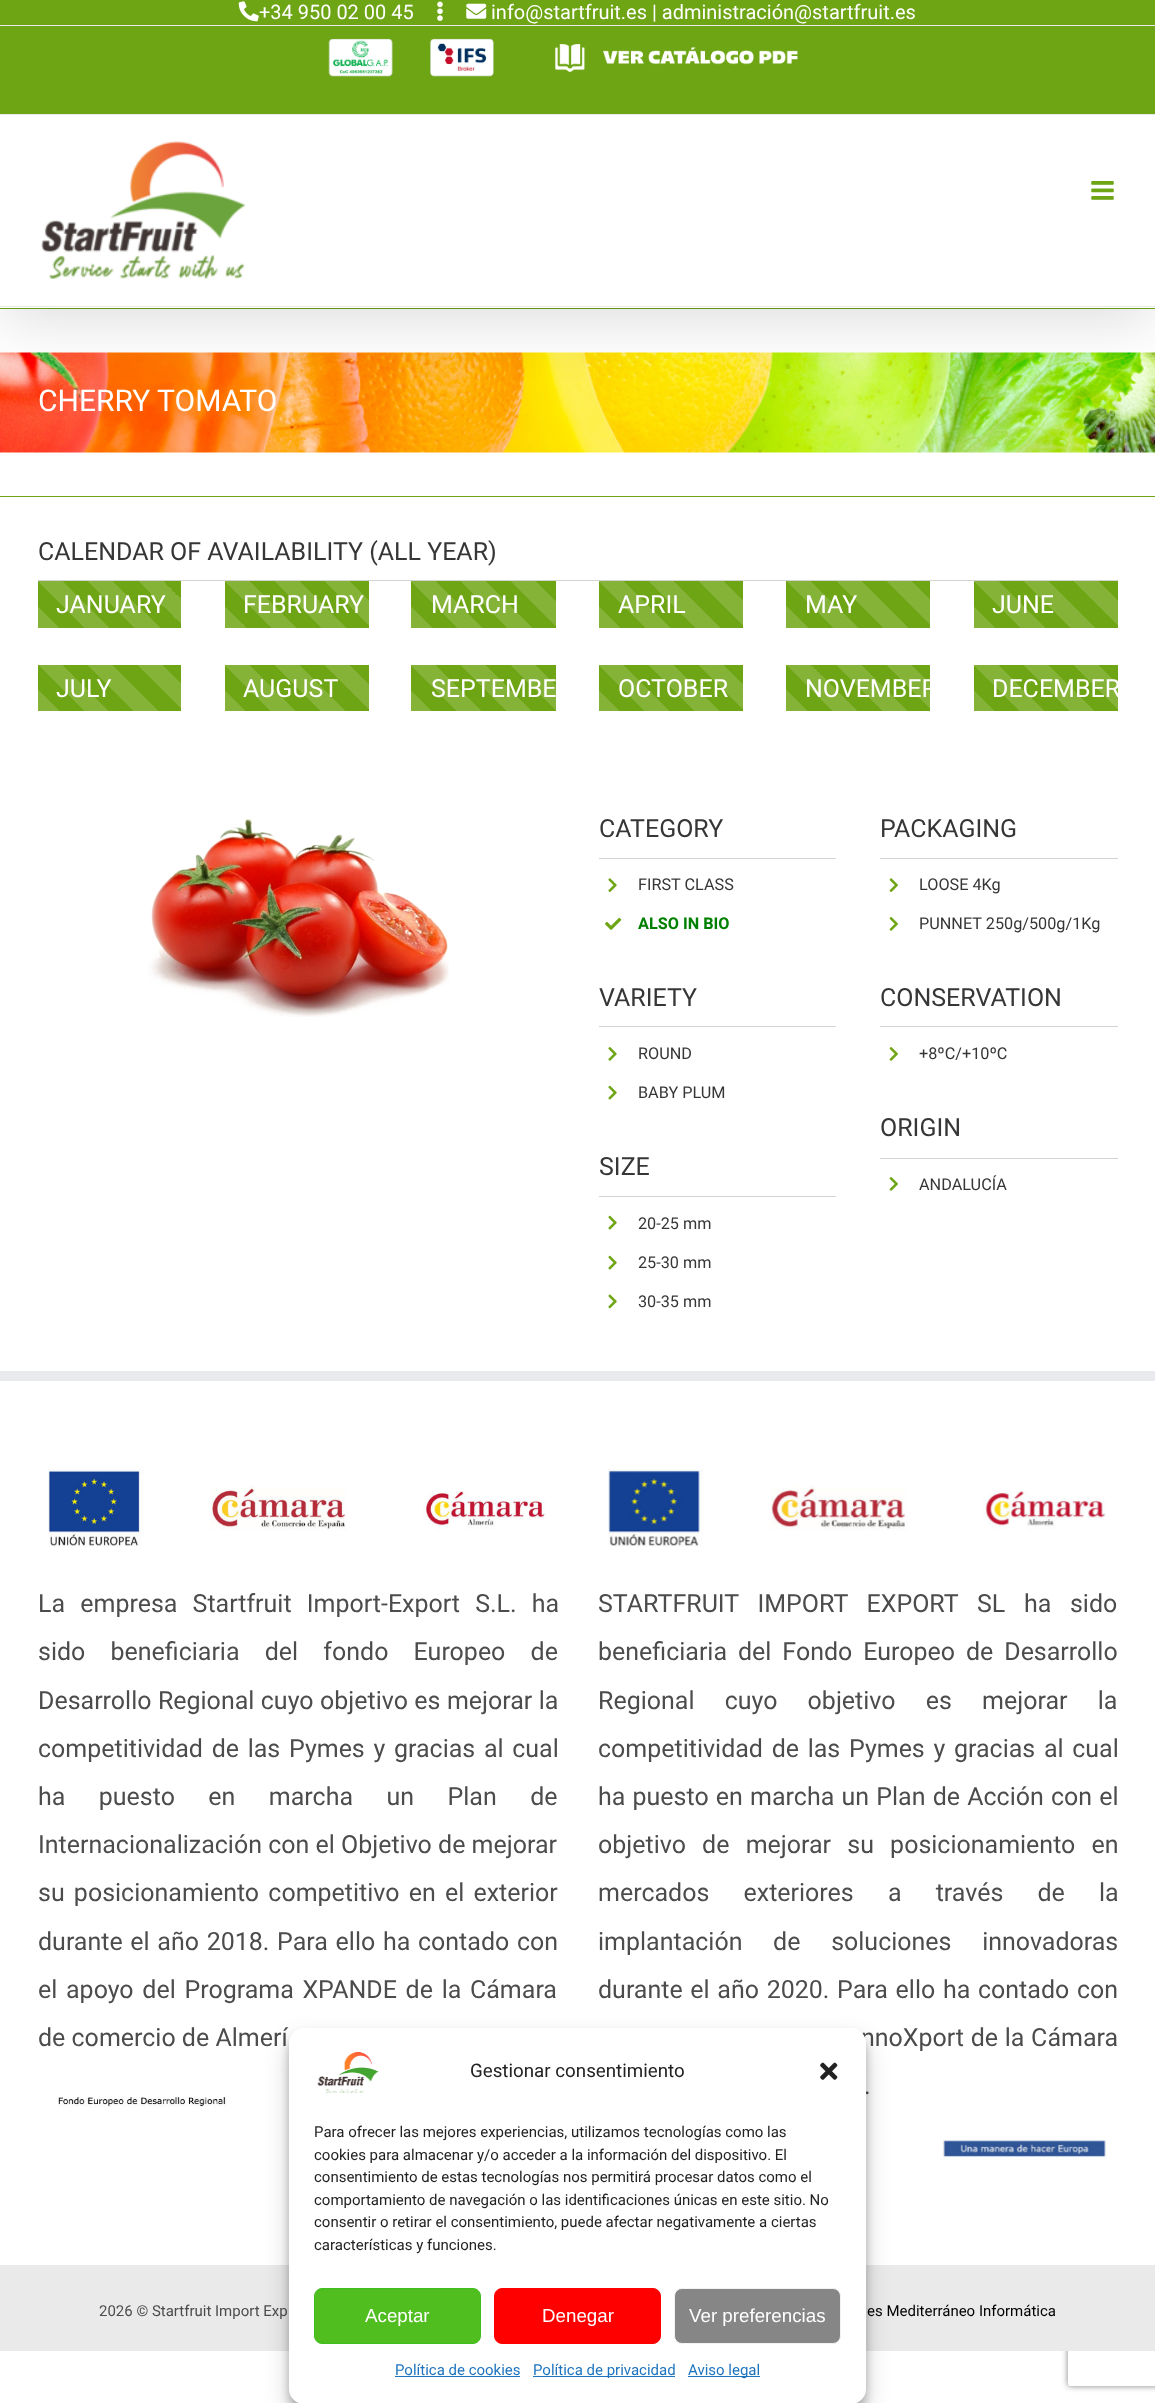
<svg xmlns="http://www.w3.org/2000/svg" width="1155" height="2403">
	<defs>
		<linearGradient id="g1" gradientUnits="userSpaceOnUse" x1="38" y1="631" x2="88" y2="581"><stop offset="0.25" stop-color="#84B338" /><stop offset="0.25" stop-color="#6EA515" /><stop offset="0.5" stop-color="#6EA515" /><stop offset="0.5" stop-color="#84B338" /><stop offset="0.75" stop-color="#84B338" /><stop offset="0.75" stop-color="#6EA515" /><stop offset="1" stop-color="#6EA515" /></linearGradient>
		<linearGradient id="g2" gradientUnits="userSpaceOnUse" x1="88" y1="631" x2="138" y2="581"><stop offset="0.25" stop-color="#84B338" /><stop offset="0.25" stop-color="#6EA515" /><stop offset="0.5" stop-color="#6EA515" /><stop offset="0.5" stop-color="#84B338" /><stop offset="0.75" stop-color="#84B338" /><stop offset="0.75" stop-color="#6EA515" /><stop offset="1" stop-color="#6EA515" /></linearGradient>
		<linearGradient id="g3" gradientUnits="userSpaceOnUse" x1="138" y1="631" x2="188" y2="581"><stop offset="0.25" stop-color="#84B338" /><stop offset="0.25" stop-color="#6EA515" /><stop offset="0.5" stop-color="#6EA515" /><stop offset="0.5" stop-color="#84B338" /><stop offset="0.75" stop-color="#84B338" /><stop offset="0.75" stop-color="#6EA515" /><stop offset="1" stop-color="#6EA515" /></linearGradient>
		<linearGradient id="g4" gradientUnits="userSpaceOnUse" x1="225" y1="631" x2="275" y2="581"><stop offset="0.25" stop-color="#84B338" /><stop offset="0.25" stop-color="#6EA515" /><stop offset="0.5" stop-color="#6EA515" /><stop offset="0.5" stop-color="#84B338" /><stop offset="0.75" stop-color="#84B338" /><stop offset="0.75" stop-color="#6EA515" /><stop offset="1" stop-color="#6EA515" /></linearGradient>
		<linearGradient id="g5" gradientUnits="userSpaceOnUse" x1="275" y1="631" x2="325" y2="581"><stop offset="0.25" stop-color="#84B338" /><stop offset="0.25" stop-color="#6EA515" /><stop offset="0.5" stop-color="#6EA515" /><stop offset="0.5" stop-color="#84B338" /><stop offset="0.75" stop-color="#84B338" /><stop offset="0.75" stop-color="#6EA515" /><stop offset="1" stop-color="#6EA515" /></linearGradient>
		<linearGradient id="g6" gradientUnits="userSpaceOnUse" x1="325" y1="631" x2="375" y2="581"><stop offset="0.25" stop-color="#84B338" /><stop offset="0.25" stop-color="#6EA515" /><stop offset="0.5" stop-color="#6EA515" /><stop offset="0.5" stop-color="#84B338" /><stop offset="0.75" stop-color="#84B338" /><stop offset="0.75" stop-color="#6EA515" /><stop offset="1" stop-color="#6EA515" /></linearGradient>
		<linearGradient id="g7" gradientUnits="userSpaceOnUse" x1="411" y1="631" x2="461" y2="581"><stop offset="0.25" stop-color="#84B338" /><stop offset="0.25" stop-color="#6EA515" /><stop offset="0.5" stop-color="#6EA515" /><stop offset="0.5" stop-color="#84B338" /><stop offset="0.75" stop-color="#84B338" /><stop offset="0.75" stop-color="#6EA515" /><stop offset="1" stop-color="#6EA515" /></linearGradient>
		<linearGradient id="g8" gradientUnits="userSpaceOnUse" x1="461" y1="631" x2="511" y2="581"><stop offset="0.25" stop-color="#84B338" /><stop offset="0.25" stop-color="#6EA515" /><stop offset="0.5" stop-color="#6EA515" /><stop offset="0.5" stop-color="#84B338" /><stop offset="0.75" stop-color="#84B338" /><stop offset="0.75" stop-color="#6EA515" /><stop offset="1" stop-color="#6EA515" /></linearGradient>
		<linearGradient id="g9" gradientUnits="userSpaceOnUse" x1="511" y1="631" x2="561" y2="581"><stop offset="0.25" stop-color="#84B338" /><stop offset="0.25" stop-color="#6EA515" /><stop offset="0.5" stop-color="#6EA515" /><stop offset="0.5" stop-color="#84B338" /><stop offset="0.75" stop-color="#84B338" /><stop offset="0.75" stop-color="#6EA515" /><stop offset="1" stop-color="#6EA515" /></linearGradient>
		<linearGradient id="g10" gradientUnits="userSpaceOnUse" x1="599" y1="631" x2="649" y2="581"><stop offset="0.25" stop-color="#84B338" /><stop offset="0.25" stop-color="#6EA515" /><stop offset="0.5" stop-color="#6EA515" /><stop offset="0.5" stop-color="#84B338" /><stop offset="0.75" stop-color="#84B338" /><stop offset="0.75" stop-color="#6EA515" /><stop offset="1" stop-color="#6EA515" /></linearGradient>
		<linearGradient id="g11" gradientUnits="userSpaceOnUse" x1="649" y1="631" x2="699" y2="581"><stop offset="0.25" stop-color="#84B338" /><stop offset="0.25" stop-color="#6EA515" /><stop offset="0.5" stop-color="#6EA515" /><stop offset="0.5" stop-color="#84B338" /><stop offset="0.75" stop-color="#84B338" /><stop offset="0.75" stop-color="#6EA515" /><stop offset="1" stop-color="#6EA515" /></linearGradient>
		<linearGradient id="g12" gradientUnits="userSpaceOnUse" x1="699" y1="631" x2="749" y2="581"><stop offset="0.25" stop-color="#84B338" /><stop offset="0.25" stop-color="#6EA515" /><stop offset="0.5" stop-color="#6EA515" /><stop offset="0.5" stop-color="#84B338" /><stop offset="0.75" stop-color="#84B338" /><stop offset="0.75" stop-color="#6EA515" /><stop offset="1" stop-color="#6EA515" /></linearGradient>
		<linearGradient id="g13" gradientUnits="userSpaceOnUse" x1="786" y1="631" x2="836" y2="581"><stop offset="0.25" stop-color="#84B338" /><stop offset="0.25" stop-color="#6EA515" /><stop offset="0.5" stop-color="#6EA515" /><stop offset="0.5" stop-color="#84B338" /><stop offset="0.75" stop-color="#84B338" /><stop offset="0.75" stop-color="#6EA515" /><stop offset="1" stop-color="#6EA515" /></linearGradient>
		<linearGradient id="g14" gradientUnits="userSpaceOnUse" x1="836" y1="631" x2="886" y2="581"><stop offset="0.25" stop-color="#84B338" /><stop offset="0.25" stop-color="#6EA515" /><stop offset="0.5" stop-color="#6EA515" /><stop offset="0.5" stop-color="#84B338" /><stop offset="0.75" stop-color="#84B338" /><stop offset="0.75" stop-color="#6EA515" /><stop offset="1" stop-color="#6EA515" /></linearGradient>
		<linearGradient id="g15" gradientUnits="userSpaceOnUse" x1="886" y1="631" x2="936" y2="581"><stop offset="0.25" stop-color="#84B338" /><stop offset="0.25" stop-color="#6EA515" /><stop offset="0.5" stop-color="#6EA515" /><stop offset="0.5" stop-color="#84B338" /><stop offset="0.75" stop-color="#84B338" /><stop offset="0.75" stop-color="#6EA515" /><stop offset="1" stop-color="#6EA515" /></linearGradient>
		<linearGradient id="g16" gradientUnits="userSpaceOnUse" x1="974" y1="631" x2="1024" y2="581"><stop offset="0.25" stop-color="#84B338" /><stop offset="0.25" stop-color="#6EA515" /><stop offset="0.5" stop-color="#6EA515" /><stop offset="0.5" stop-color="#84B338" /><stop offset="0.75" stop-color="#84B338" /><stop offset="0.75" stop-color="#6EA515" /><stop offset="1" stop-color="#6EA515" /></linearGradient>
		<linearGradient id="g17" gradientUnits="userSpaceOnUse" x1="1024" y1="631" x2="1074" y2="581"><stop offset="0.25" stop-color="#84B338" /><stop offset="0.25" stop-color="#6EA515" /><stop offset="0.5" stop-color="#6EA515" /><stop offset="0.5" stop-color="#84B338" /><stop offset="0.75" stop-color="#84B338" /><stop offset="0.75" stop-color="#6EA515" /><stop offset="1" stop-color="#6EA515" /></linearGradient>
		<linearGradient id="g18" gradientUnits="userSpaceOnUse" x1="1074" y1="631" x2="1124" y2="581"><stop offset="0.25" stop-color="#84B338" /><stop offset="0.25" stop-color="#6EA515" /><stop offset="0.5" stop-color="#6EA515" /><stop offset="0.5" stop-color="#84B338" /><stop offset="0.75" stop-color="#84B338" /><stop offset="0.75" stop-color="#6EA515" /><stop offset="1" stop-color="#6EA515" /></linearGradient>
		<linearGradient id="g19" gradientUnits="userSpaceOnUse" x1="38" y1="715" x2="88" y2="665"><stop offset="0.25" stop-color="#84B338" /><stop offset="0.25" stop-color="#6EA515" /><stop offset="0.5" stop-color="#6EA515" /><stop offset="0.5" stop-color="#84B338" /><stop offset="0.75" stop-color="#84B338" /><stop offset="0.75" stop-color="#6EA515" /><stop offset="1" stop-color="#6EA515" /></linearGradient>
		<linearGradient id="g20" gradientUnits="userSpaceOnUse" x1="88" y1="715" x2="138" y2="665"><stop offset="0.25" stop-color="#84B338" /><stop offset="0.25" stop-color="#6EA515" /><stop offset="0.5" stop-color="#6EA515" /><stop offset="0.5" stop-color="#84B338" /><stop offset="0.75" stop-color="#84B338" /><stop offset="0.75" stop-color="#6EA515" /><stop offset="1" stop-color="#6EA515" /></linearGradient>
		<linearGradient id="g21" gradientUnits="userSpaceOnUse" x1="138" y1="715" x2="188" y2="665"><stop offset="0.25" stop-color="#84B338" /><stop offset="0.25" stop-color="#6EA515" /><stop offset="0.5" stop-color="#6EA515" /><stop offset="0.5" stop-color="#84B338" /><stop offset="0.75" stop-color="#84B338" /><stop offset="0.75" stop-color="#6EA515" /><stop offset="1" stop-color="#6EA515" /></linearGradient>
		<linearGradient id="g22" gradientUnits="userSpaceOnUse" x1="225" y1="715" x2="275" y2="665"><stop offset="0.25" stop-color="#84B338" /><stop offset="0.25" stop-color="#6EA515" /><stop offset="0.5" stop-color="#6EA515" /><stop offset="0.5" stop-color="#84B338" /><stop offset="0.75" stop-color="#84B338" /><stop offset="0.75" stop-color="#6EA515" /><stop offset="1" stop-color="#6EA515" /></linearGradient>
		<linearGradient id="g23" gradientUnits="userSpaceOnUse" x1="275" y1="715" x2="325" y2="665"><stop offset="0.25" stop-color="#84B338" /><stop offset="0.25" stop-color="#6EA515" /><stop offset="0.5" stop-color="#6EA515" /><stop offset="0.5" stop-color="#84B338" /><stop offset="0.75" stop-color="#84B338" /><stop offset="0.75" stop-color="#6EA515" /><stop offset="1" stop-color="#6EA515" /></linearGradient>
		<linearGradient id="g24" gradientUnits="userSpaceOnUse" x1="325" y1="715" x2="375" y2="665"><stop offset="0.25" stop-color="#84B338" /><stop offset="0.25" stop-color="#6EA515" /><stop offset="0.5" stop-color="#6EA515" /><stop offset="0.5" stop-color="#84B338" /><stop offset="0.75" stop-color="#84B338" /><stop offset="0.75" stop-color="#6EA515" /><stop offset="1" stop-color="#6EA515" /></linearGradient>
		<linearGradient id="g25" gradientUnits="userSpaceOnUse" x1="411" y1="715" x2="461" y2="665"><stop offset="0.25" stop-color="#84B338" /><stop offset="0.25" stop-color="#6EA515" /><stop offset="0.5" stop-color="#6EA515" /><stop offset="0.5" stop-color="#84B338" /><stop offset="0.75" stop-color="#84B338" /><stop offset="0.75" stop-color="#6EA515" /><stop offset="1" stop-color="#6EA515" /></linearGradient>
		<linearGradient id="g26" gradientUnits="userSpaceOnUse" x1="461" y1="715" x2="511" y2="665"><stop offset="0.25" stop-color="#84B338" /><stop offset="0.25" stop-color="#6EA515" /><stop offset="0.5" stop-color="#6EA515" /><stop offset="0.5" stop-color="#84B338" /><stop offset="0.75" stop-color="#84B338" /><stop offset="0.75" stop-color="#6EA515" /><stop offset="1" stop-color="#6EA515" /></linearGradient>
		<linearGradient id="g27" gradientUnits="userSpaceOnUse" x1="511" y1="715" x2="561" y2="665"><stop offset="0.25" stop-color="#84B338" /><stop offset="0.25" stop-color="#6EA515" /><stop offset="0.5" stop-color="#6EA515" /><stop offset="0.5" stop-color="#84B338" /><stop offset="0.75" stop-color="#84B338" /><stop offset="0.75" stop-color="#6EA515" /><stop offset="1" stop-color="#6EA515" /></linearGradient>
		<linearGradient id="g28" gradientUnits="userSpaceOnUse" x1="599" y1="715" x2="649" y2="665"><stop offset="0.25" stop-color="#84B338" /><stop offset="0.25" stop-color="#6EA515" /><stop offset="0.5" stop-color="#6EA515" /><stop offset="0.5" stop-color="#84B338" /><stop offset="0.75" stop-color="#84B338" /><stop offset="0.75" stop-color="#6EA515" /><stop offset="1" stop-color="#6EA515" /></linearGradient>
		<linearGradient id="g29" gradientUnits="userSpaceOnUse" x1="649" y1="715" x2="699" y2="665"><stop offset="0.25" stop-color="#84B338" /><stop offset="0.25" stop-color="#6EA515" /><stop offset="0.5" stop-color="#6EA515" /><stop offset="0.5" stop-color="#84B338" /><stop offset="0.75" stop-color="#84B338" /><stop offset="0.75" stop-color="#6EA515" /><stop offset="1" stop-color="#6EA515" /></linearGradient>
		<linearGradient id="g30" gradientUnits="userSpaceOnUse" x1="699" y1="715" x2="749" y2="665"><stop offset="0.25" stop-color="#84B338" /><stop offset="0.25" stop-color="#6EA515" /><stop offset="0.5" stop-color="#6EA515" /><stop offset="0.5" stop-color="#84B338" /><stop offset="0.75" stop-color="#84B338" /><stop offset="0.75" stop-color="#6EA515" /><stop offset="1" stop-color="#6EA515" /></linearGradient>
		<linearGradient id="g31" gradientUnits="userSpaceOnUse" x1="786" y1="715" x2="836" y2="665"><stop offset="0.25" stop-color="#84B338" /><stop offset="0.25" stop-color="#6EA515" /><stop offset="0.5" stop-color="#6EA515" /><stop offset="0.5" stop-color="#84B338" /><stop offset="0.75" stop-color="#84B338" /><stop offset="0.75" stop-color="#6EA515" /><stop offset="1" stop-color="#6EA515" /></linearGradient>
		<linearGradient id="g32" gradientUnits="userSpaceOnUse" x1="836" y1="715" x2="886" y2="665"><stop offset="0.25" stop-color="#84B338" /><stop offset="0.25" stop-color="#6EA515" /><stop offset="0.5" stop-color="#6EA515" /><stop offset="0.5" stop-color="#84B338" /><stop offset="0.75" stop-color="#84B338" /><stop offset="0.75" stop-color="#6EA515" /><stop offset="1" stop-color="#6EA515" /></linearGradient>
		<linearGradient id="g33" gradientUnits="userSpaceOnUse" x1="886" y1="715" x2="936" y2="665"><stop offset="0.25" stop-color="#84B338" /><stop offset="0.25" stop-color="#6EA515" /><stop offset="0.5" stop-color="#6EA515" /><stop offset="0.5" stop-color="#84B338" /><stop offset="0.75" stop-color="#84B338" /><stop offset="0.75" stop-color="#6EA515" /><stop offset="1" stop-color="#6EA515" /></linearGradient>
		<linearGradient id="g34" gradientUnits="userSpaceOnUse" x1="974" y1="715" x2="1024" y2="665"><stop offset="0.25" stop-color="#84B338" /><stop offset="0.25" stop-color="#6EA515" /><stop offset="0.5" stop-color="#6EA515" /><stop offset="0.5" stop-color="#84B338" /><stop offset="0.75" stop-color="#84B338" /><stop offset="0.75" stop-color="#6EA515" /><stop offset="1" stop-color="#6EA515" /></linearGradient>
		<linearGradient id="g35" gradientUnits="userSpaceOnUse" x1="1024" y1="715" x2="1074" y2="665"><stop offset="0.25" stop-color="#84B338" /><stop offset="0.25" stop-color="#6EA515" /><stop offset="0.5" stop-color="#6EA515" /><stop offset="0.5" stop-color="#84B338" /><stop offset="0.75" stop-color="#84B338" /><stop offset="0.75" stop-color="#6EA515" /><stop offset="1" stop-color="#6EA515" /></linearGradient>
		<linearGradient id="g36" gradientUnits="userSpaceOnUse" x1="1074" y1="715" x2="1124" y2="665"><stop offset="0.25" stop-color="#84B338" /><stop offset="0.25" stop-color="#6EA515" /><stop offset="0.5" stop-color="#6EA515" /><stop offset="0.5" stop-color="#84B338" /><stop offset="0.75" stop-color="#84B338" /><stop offset="0.75" stop-color="#6EA515" /><stop offset="1" stop-color="#6EA515" /></linearGradient>
		<clipPath id="clip1"><path d="M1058 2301H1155V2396H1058ZM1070.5 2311H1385.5C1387 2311 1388 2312 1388 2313.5V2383.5C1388 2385 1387 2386 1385.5 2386H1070.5C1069 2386 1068 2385 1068 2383.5V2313.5C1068 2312 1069 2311 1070.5 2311Z" clip-rule="evenodd" /></clipPath>
	</defs>
	<rect width="100%" height="100%" fill="#FFFFFF" />
	<image x="0" y="352" width="1155" height="101" href="assets/img9.png" />
	<rect x="0" y="308" width="1155" height="1" fill="#6EA515" />
	<rect x="3" y="15" width="1150" height="303" fill="#000000" fill-opacity="0.14" filter="blur(31px)" />
	<rect x="0" y="0" width="1155" height="114" fill="#6EA515" />
	<rect x="0" y="114" width="1155" height="1" fill="#EAEAEA" />
	<rect x="0" y="25" width="1155" height="1" fill="#EAEAEA" />
	<image x="238" y="1" width="21" height="21" href="assets/img1.png" />
	<text x="259" y="19" font-family="Roboto" font-size="20" fill="#FFFFFF">+34 950 02 00 45</text>
	<image x="437" y="1" width="6" height="20" href="assets/img2.png" />
	<image x="466" y="3" width="21" height="16" href="assets/img3.png" />
	<text x="491" y="19" font-family="Roboto" font-size="20" fill="#FFFFFF">info@startfruit.es | administración@startfruit.es</text>
	<image x="328" y="38" width="65" height="39" href="assets/img4.png" />
	<image x="430" y="38" width="64" height="39" href="assets/img5.png" />
	<image x="555" y="44" width="243" height="28" href="assets/img6.png" />
	<rect x="0" y="115" width="1155" height="193" fill="#FFFFFF" />
	<rect x="0" y="306" width="1155" height="1" fill="#EAEAEA" />
	<image x="41" y="141" width="205" height="138" href="assets/img7.png" />
	<image x="1091" y="181" width="23" height="19" href="assets/img8.png" />
	<rect x="0" y="496" width="1155" height="1" fill="#6EA515" />
	<text x="38" y="411" font-family="Roboto" font-size="30" fill="#FFFFFF">CHERRY TOMATO</text>
	<rect x="38" y="580" width="1080" height="1" fill="#D3D3D3" />
	<text x="38" y="560" font-family="Roboto" font-size="25" fill="#363636">CALENDAR OF AVAILABILITY (ALL YEAR)</text>
	<rect x="38" y="581" width="50" height="47" fill="url(#g1)" />
	<rect x="88" y="581" width="50" height="47" fill="url(#g2)" />
	<rect x="138" y="581" width="43" height="47" fill="url(#g3)" />
	<text x="56" y="613" font-family="Roboto" font-size="25" fill="#FFFFFF">JANUARY</text>
	<rect x="225" y="581" width="50" height="47" fill="url(#g4)" />
	<rect x="275" y="581" width="50" height="47" fill="url(#g5)" />
	<rect x="325" y="581" width="44" height="47" fill="url(#g6)" />
	<text x="243" y="613" font-family="Roboto" font-size="25" fill="#FFFFFF">FEBRUARY</text>
	<rect x="411" y="581" width="50" height="47" fill="url(#g7)" />
	<rect x="461" y="581" width="50" height="47" fill="url(#g8)" />
	<rect x="511" y="581" width="45" height="47" fill="url(#g9)" />
	<text x="431" y="613" font-family="Roboto" font-size="25" fill="#FFFFFF">MARCH</text>
	<rect x="599" y="581" width="50" height="47" fill="url(#g10)" />
	<rect x="649" y="581" width="50" height="47" fill="url(#g11)" />
	<rect x="699" y="581" width="44" height="47" fill="url(#g12)" />
	<text x="618" y="613" font-family="Roboto" font-size="25" fill="#FFFFFF">APRIL</text>
	<rect x="786" y="581" width="50" height="47" fill="url(#g13)" />
	<rect x="836" y="581" width="50" height="47" fill="url(#g14)" />
	<rect x="886" y="581" width="44" height="47" fill="url(#g15)" />
	<text x="805" y="613" font-family="Roboto" font-size="25" fill="#FFFFFF">MAY</text>
	<rect x="974" y="581" width="50" height="47" fill="url(#g16)" />
	<rect x="1024" y="581" width="50" height="47" fill="url(#g17)" />
	<rect x="1074" y="581" width="44" height="47" fill="url(#g18)" />
	<text x="992" y="613" font-family="Roboto" font-size="25" fill="#FFFFFF">JUNE</text>
	<rect x="38" y="665" width="50" height="46" fill="url(#g19)" />
	<rect x="88" y="665" width="50" height="46" fill="url(#g20)" />
	<rect x="138" y="665" width="43" height="46" fill="url(#g21)" />
	<text x="56" y="697" font-family="Roboto" font-size="25" fill="#FFFFFF">JULY</text>
	<rect x="225" y="665" width="50" height="46" fill="url(#g22)" />
	<rect x="275" y="665" width="50" height="46" fill="url(#g23)" />
	<rect x="325" y="665" width="44" height="46" fill="url(#g24)" />
	<text x="243" y="697" font-family="Roboto" font-size="25" fill="#FFFFFF">AUGUST</text>
	<rect x="411" y="665" width="50" height="46" fill="url(#g25)" />
	<rect x="461" y="665" width="50" height="46" fill="url(#g26)" />
	<rect x="511" y="665" width="45" height="46" fill="url(#g27)" />
	<text x="431" y="697" font-family="Roboto" font-size="25" fill="#FFFFFF">SEPTEMBE</text>
	<rect x="599" y="665" width="50" height="46" fill="url(#g28)" />
	<rect x="649" y="665" width="50" height="46" fill="url(#g29)" />
	<rect x="699" y="665" width="44" height="46" fill="url(#g30)" />
	<text x="618" y="697" font-family="Roboto" font-size="25" fill="#FFFFFF">OCTOBER</text>
	<rect x="786" y="665" width="50" height="46" fill="url(#g31)" />
	<rect x="836" y="665" width="50" height="46" fill="url(#g32)" />
	<rect x="886" y="665" width="44" height="46" fill="url(#g33)" />
	<text x="805" y="697" font-family="Roboto" font-size="25" fill="#FFFFFF">NOVEMBER</text>
	<rect x="974" y="665" width="50" height="46" fill="url(#g34)" />
	<rect x="1024" y="665" width="50" height="46" fill="url(#g35)" />
	<rect x="1074" y="665" width="44" height="46" fill="url(#g36)" />
	<text x="992" y="697" font-family="Roboto" font-size="25" fill="#FFFFFF">DECEMBER</text>
	<image x="148" y="818" width="301" height="199" href="assets/img10.png" />
	<rect x="599" y="858" width="237" height="1" fill="#D3D3D3" />
	<text x="599" y="837" font-family="Roboto" font-size="25" fill="#363636">CATEGORY</text>
	<image x="608" y="878" width="9" height="14" href="assets/img11.png" />
	<text x="638" y="890" font-family="Roboto" font-size="16.25" fill="#363636">FIRST CLASS</text>
	<image x="605" y="917" width="17" height="13" href="assets/img12.png" />
	<text x="638" y="929" font-family="Roboto" font-size="16.25" font-weight="700" fill="#008000">ALSO IN BIO</text>
	<rect x="599" y="1026" width="237" height="1" fill="#D3D3D3" />
	<text x="599" y="1006" font-family="Roboto" font-size="25" fill="#363636">VARIETY</text>
	<image x="608" y="1047" width="9" height="14" href="assets/img13.png" />
	<text x="638" y="1059" font-family="Roboto" font-size="16.25" fill="#363636">ROUND</text>
	<image x="608" y="1085" width="9" height="15" href="assets/img14.png" />
	<text x="638" y="1098" font-family="Roboto" font-size="16.25" fill="#363636">BABY PLUM</text>
	<rect x="599" y="1196" width="237" height="1" fill="#D3D3D3" />
	<text x="599" y="1175" font-family="Roboto" font-size="25" fill="#363636">SIZE</text>
	<image x="608" y="1215" width="9" height="15" href="assets/img14.png" />
	<text x="638" y="1229" font-family="Roboto" font-size="16.25" fill="#363636">20-25 mm</text>
	<image x="608" y="1255" width="9" height="15" href="assets/img14.png" />
	<text x="638" y="1268" font-family="Roboto" font-size="16.25" fill="#363636">25-30 mm</text>
	<image x="608" y="1294" width="9" height="15" href="assets/img15.png" />
	<text x="638" y="1307" font-family="Roboto" font-size="16.25" fill="#363636">30-35 mm</text>
	<rect x="880" y="858" width="238" height="1" fill="#D3D3D3" />
	<text x="880" y="837" font-family="Roboto" font-size="25" fill="#363636">PACKAGING</text>
	<image x="889" y="878" width="9" height="14" href="assets/img16.png" />
	<text x="919" y="890" font-family="Roboto" font-size="16.25" fill="#363636">LOOSE 4Kg</text>
	<image x="889" y="917" width="9" height="14" href="assets/img17.png" />
	<text x="919" y="929" font-family="Roboto" font-size="16.25" fill="#363636">PUNNET 250g/500g/1Kg</text>
	<rect x="880" y="1026" width="238" height="1" fill="#D3D3D3" />
	<text x="880" y="1006" font-family="Roboto" font-size="25" fill="#363636">CONSERVATION</text>
	<image x="889" y="1047" width="9" height="14" href="assets/img17.png" />
	<text x="919" y="1059" font-family="Roboto" font-size="16.25" fill="#363636">+8ºC/+10ºC</text>
	<rect x="880" y="1158" width="238" height="1" fill="#D3D3D3" />
	<text x="880" y="1136" font-family="Roboto" font-size="25" fill="#363636">ORIGIN</text>
	<image x="889" y="1177" width="9" height="14" href="assets/img17.png" />
	<text x="919" y="1190" font-family="Roboto" font-size="16.25" fill="#363636">ANDALUCÍA</text>
	<rect x="0" y="1371" width="1155" height="10" fill="#E9EAEE" />
	<image x="48" y="1468" width="498" height="79" href="assets/img18.png" />
	<g font-family="Roboto" font-size="25" fill="#4C4C4C">
		<text x="38" y="1612" word-spacing="9">La empresa Startfruit Import-Export S.L. ha</text>
		<text x="38" y="1660" word-spacing="19">sido beneficiaria del fondo Europeo de</text>
		<text x="38" y="1709" word-spacing="0.25">Desarrollo Regional cuyo objetivo es mejorar la</text>
		<text x="38" y="1757" word-spacing="2.5">competitividad de las Pymes y gracias al cual</text>
		<text x="38" y="1805" word-spacing="27.25">ha puesto en marcha un Plan de</text>
		<text x="38" y="1853">Internacionalización con el Objetivo de mejorar</text>
		<text x="38" y="1901" word-spacing="3">su posicionamiento competitivo en el exterior</text>
		<text x="38" y="1950" word-spacing="1.5">durante el año 2018. Para ello ha contado con</text>
		<text x="38" y="1998" word-spacing="2.5">el apoyo del Programa XPANDE de la Cámara</text>
		<text x="38" y="2046">de comercio de Almerí</text>
	</g>
	<image x="58" y="2092" width="231" height="20" href="assets/img19.png" />
	<image x="608" y="1468" width="498" height="79" href="assets/img20.png" />
	<g font-family="Roboto" font-size="25" fill="#4C4C4C">
		<text x="598" y="1612" word-spacing="12.5">STARTFRUIT IMPORT EXPORT SL ha sido</text>
		<text x="598" y="1660" word-spacing="4.75">beneficiaria del Fondo Europeo de Desarrollo</text>
		<text x="598" y="1709" word-spacing="24">Regional cuyo objetivo es mejorar la</text>
		<text x="598" y="1757" word-spacing="2.5">competitividad de las Pymes y gracias al cual</text>
		<text x="598" y="1805" word-spacing="1">ha puesto en marcha un Plan de Acción con el</text>
		<text x="598" y="1853" word-spacing="10">objetivo de mejorar su posicionamiento en</text>
		<text x="598" y="1901" word-spacing="28">mercados exteriores a través de la</text>
		<text x="598" y="1950" word-spacing="24.5">implantación de soluciones innovadoras</text>
		<text x="598" y="1998" word-spacing="1.5">durante el año 2020. Para ello ha contado con</text>
		<text x="861" y="2046" word-spacing="0.5">nnoXport de la Cámara</text>
		<text x="864" y="2094">.</text>
	</g>
	<image x="866" y="2140" width="241" height="20" href="assets/img21.png" />
	<g clip-path="url(#clip1)">
		<rect x="1068" y="2311" width="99" height="75" rx="2.5" fill="#808080" filter="blur(3px)" />
	</g>
	<rect x="0" y="2265" width="1155" height="86" fill="#EAEAEA" />
	<text x="99" y="2316" font-family="Roboto" font-size="15" fill="#4C4C4C">2026 © Startfruit Import Exp</text>
	<text x="867" y="2316" font-family="Roboto" font-size="15" fill="#000000">es Mediterráneo Informática</text>
	<rect x="289" y="2035" width="577" height="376" rx="15" fill="#000000" fill-opacity="0.23" filter="blur(4px)" />
	<rect x="289" y="2040" width="577" height="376" rx="15" fill="#000000" fill-opacity="0.19" filter="blur(12.5px)" />
	<rect x="289" y="2028" width="577" height="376" rx="15" fill="#FFFFFF" />
	<image x="317" y="2051" width="62" height="42" href="assets/img22.png" />
	<text x="470" y="2077" font-family="Roboto" font-size="18.75" fill="#222222">Gestionar consentimiento</text>
	<image x="820" y="2062" width="18" height="18" href="assets/img23.png" />
	<g font-family="Roboto" font-size="15" fill="#222222">
		<text x="314" y="2137">Para ofrecer las mejores experiencias, utilizamos tecnologías como las</text>
		<text x="314" y="2160">cookies para almacenar y/o acceder a la información del dispositivo. El</text>
		<text x="314" y="2182">consentimiento de estas tecnologías nos permitirá procesar datos como el</text>
		<text x="314" y="2205">comportamiento de navegación o las identificaciones únicas en este sitio. No</text>
		<text x="314" y="2227">consentir o retirar el consentimiento, puede afectar negativamente a ciertas</text>
		<text x="314" y="2250">características y funciones.</text>
	</g>
	<rect x="314.5" y="2288.5" width="166" height="55" rx="7.5" fill="#4FBE1E" stroke="#3EBE1E" />
	<text x="365" y="2322" font-family="Liberation Sans" font-size="18.75" fill="#FFFFFF">Aceptar</text>
	<rect x="494.5" y="2288.5" width="166" height="55" rx="7.5" fill="#FF0000" stroke="#FF0000" />
	<text x="542" y="2322" font-family="Liberation Sans" font-size="18.75" fill="#FFFFFF">Denegar</text>
	<rect x="674.5" y="2288.5" width="166" height="55" rx="7.5" fill="#868686" stroke="#F2F2F2" />
	<text x="689" y="2322" font-family="Liberation Sans" font-size="18.75" fill="#FFFFFF">Ver preferencias</text>
	<text x="395" y="2375" font-family="Roboto" font-size="15" fill="#1E73BE">Política de cookies</text>
	<rect x="395" y="2376" width="125" height="1" fill="#1E73BE" />
	<rect x="533" y="2376" width="142" height="1" fill="#1E73BE" />
	<text x="533" y="2375" font-family="Roboto" font-size="15" fill="#1E73BE">Política de privacidad</text>
	<rect x="688" y="2376" width="72" height="1" fill="#1E73BE" />
	<text x="688" y="2375" font-family="Roboto" font-size="15" fill="#1E73BE">Aviso legal</text>
</svg>
